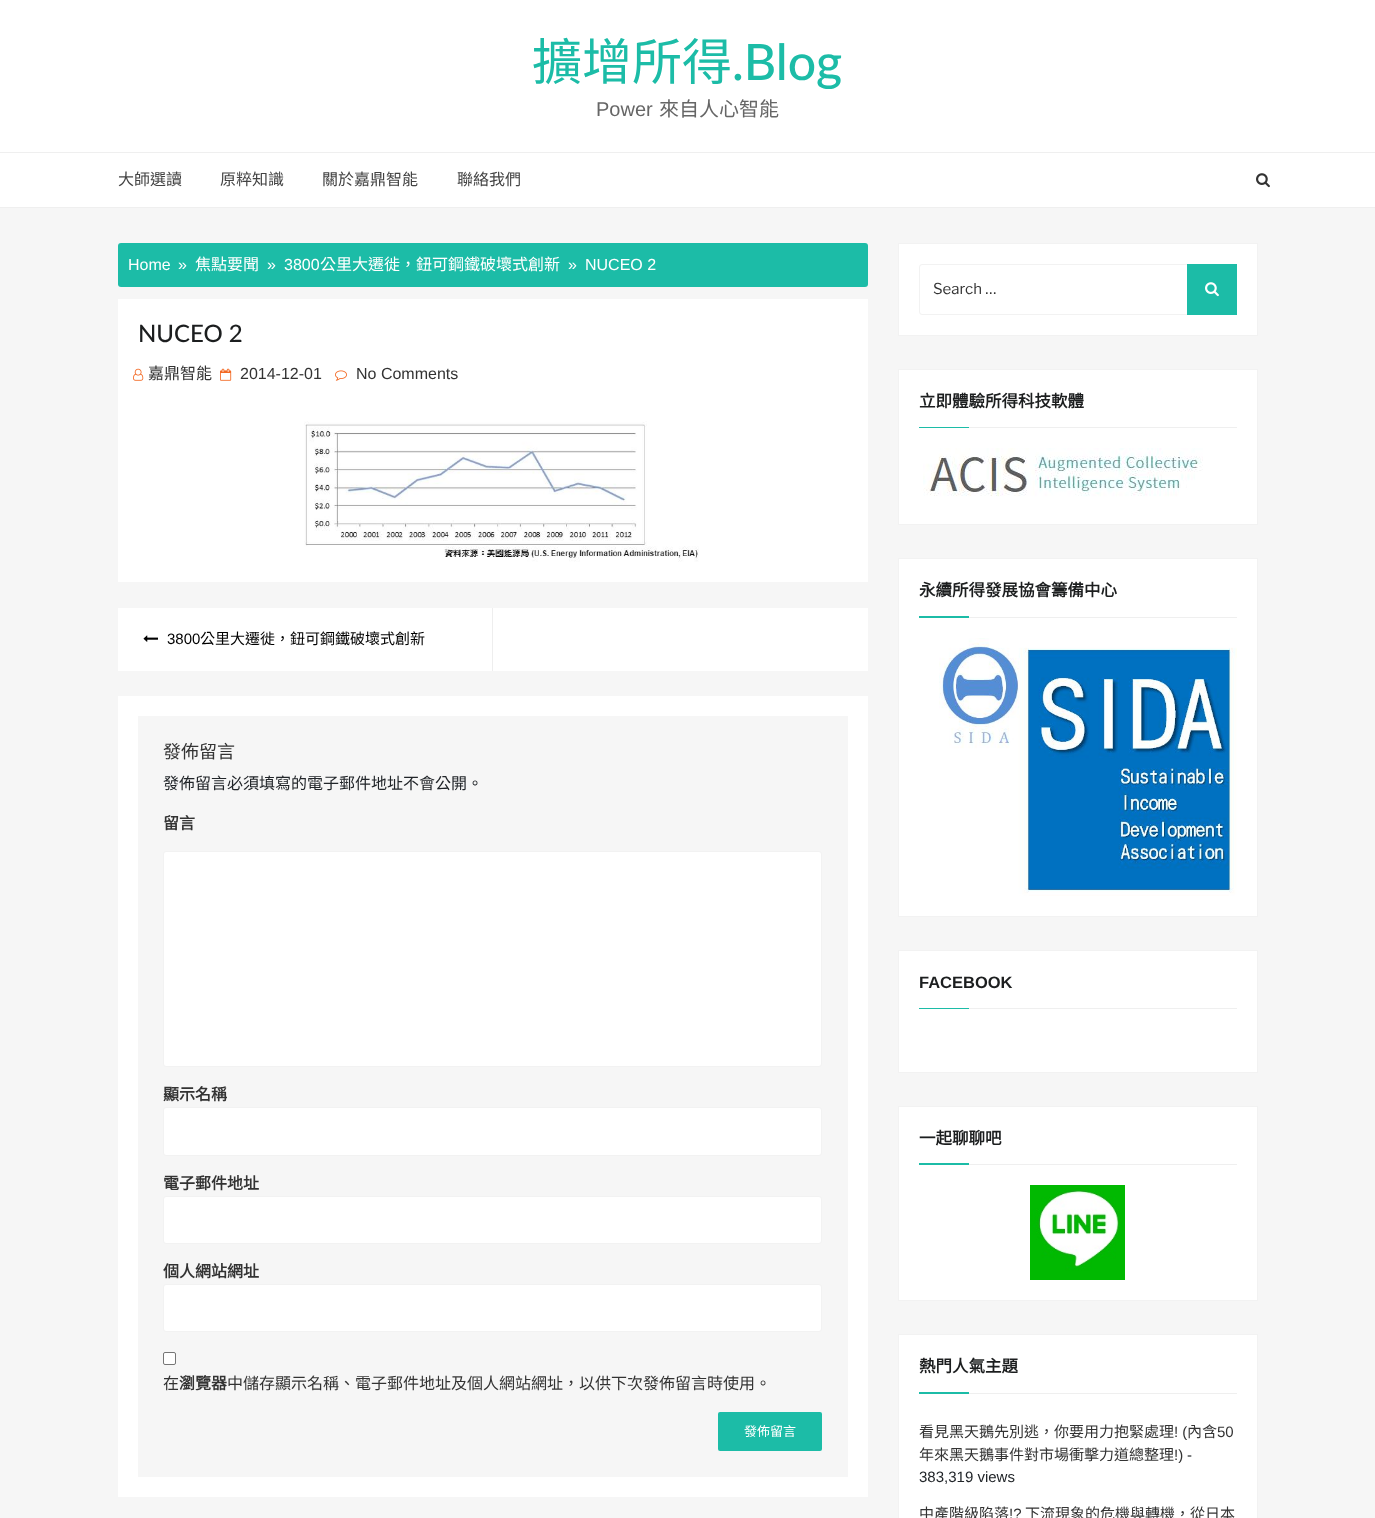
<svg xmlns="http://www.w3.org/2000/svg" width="1375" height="1518">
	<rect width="100%" height="100%" fill="#F6F6F6" />
	<rect x="0" y="0" width="1375" height="207" fill="#FFFFFF" />
	<text x="532" y="80" font-family="Noto Sans CJK TC" font-size="50" fill="#1CBCA7">擴增所得</text>
	<text x="732" y="80" font-family="Lato" font-size="50" font-weight="500" fill="#1CBCA7">.Blog</text>
	<text x="596" y="116" font-family="Liberation Sans" font-size="20" fill="#666666">Power</text>
	<text x="659" y="116" font-family="Noto Sans CJK TC" font-size="20" fill="#666666">來自人心智能</text>
	<rect x="0" y="152" width="1375" height="1" fill="#EFEFEF" />
	<rect x="0" y="207" width="1375" height="1" fill="#EFEFEF" />
	<g font-family="Noto Sans CJK TC" font-size="16" fill="#434343">
		<text x="118" y="185">大師選讀</text>
		<text x="220" y="185">原粹知識</text>
		<text x="322" y="185">關於嘉鼎智能</text>
		<text x="457" y="185">聯絡我們</text>
	</g>
	<image x="1256" y="173" width="14" height="15" href="assets/img1.png" />
	<rect x="118" y="243" width="750" height="44" rx="3" fill="#1CBCA7" />
	<g font-family="Liberation Sans" font-size="16" fill="#FFFFFF">
		<text x="128" y="270">Home</text>
		<text x="178" y="270">»</text>
	</g>
	<text x="195" y="270" font-family="Noto Sans CJK TC" font-size="16" fill="#FFFFFF">焦點要聞</text>
	<g font-family="Liberation Sans" font-size="16" fill="#FFFFFF">
		<text x="267" y="270">»</text>
		<text x="284" y="270">3800</text>
	</g>
	<text x="320" y="270" font-family="Noto Sans CJK TC" font-size="16" fill="#FFFFFF">公里大遷徙，鈕可鋼鐵破壞式創新</text>
	<g font-family="Liberation Sans" font-size="16" fill="#FFFFFF">
		<text x="568" y="270">»</text>
		<text x="585" y="270">NUCEO 2</text>
	</g>
	<rect x="118" y="299" width="750" height="283" fill="#FFFFFF" />
	<text x="138" y="342" font-family="Lato" font-size="24" font-weight="500" fill="#1C1E1F">NUCEO 2</text>
	<image x="133" y="368" width="11" height="13" href="assets/img2.png" />
	<text x="148" y="379" font-family="Noto Sans CJK TC" font-size="16" fill="#333333">嘉鼎智能</text>
	<image x="220" y="368" width="12" height="13" href="assets/img3.png" />
	<text x="240" y="379" font-family="Liberation Sans" font-size="16" fill="#333333">2014-12-01</text>
	<image x="335" y="370" width="12" height="11" href="assets/img4.png" />
	<text x="356" y="379" font-family="Liberation Sans" font-size="16" fill="#333333">No Comments</text>
	<image x="304" y="421" width="395" height="141" href="assets/img5.png" />
	<rect x="118" y="608" width="750" height="63" fill="#FFFFFF" />
	<rect x="492" y="608" width="1" height="63" fill="#EEEEEE" />
	<image x="143" y="635" width="15" height="7" href="assets/img6.png" />
	<text x="167" y="644" font-family="Liberation Sans" font-size="15" fill="#000000">3800</text>
	<text x="200" y="644" font-family="Noto Sans CJK TC" font-size="15" fill="#000000">公里大遷徙，鈕可鋼鐵破壞式創新</text>
	<rect x="118" y="696" width="750" height="801" fill="#FFFFFF" />
	<rect x="138" y="716" width="710" height="761" fill="#F6F6F6" />
	<text x="163" y="758" font-family="Noto Sans CJK TC" font-size="18" fill="#333333">發佈留言</text>
	<text x="163" y="789" font-family="Noto Sans CJK TC" font-size="16" fill="#212529">發佈留言必須填寫的電子郵件地址不會公開。</text>
	<text x="163" y="829" font-family="Noto Sans CJK TC" font-size="16" font-weight="700" fill="#333333">留言</text>
	<rect x="163.5" y="851.5" width="658" height="215" rx="2.5" fill="#FFFFFF" stroke="#F2F2F2" />
	<text x="163" y="1100" font-family="Noto Sans CJK TC" font-size="16" font-weight="700" fill="#333333">顯示名稱</text>
	<rect x="163.5" y="1107.5" width="658" height="48" rx="2.5" fill="#FFFFFF" stroke="#F2F2F2" />
	<text x="163" y="1189" font-family="Noto Sans CJK TC" font-size="16" font-weight="700" fill="#333333">電子郵件地址</text>
	<rect x="163.5" y="1196.5" width="658" height="47" rx="2.5" fill="#FFFFFF" stroke="#F2F2F2" />
	<text x="163" y="1277" font-family="Noto Sans CJK TC" font-size="16" font-weight="700" fill="#333333">個人網站網址</text>
	<rect x="163.5" y="1284.5" width="658" height="47" rx="2.5" fill="#FFFFFF" stroke="#F2F2F2" />
	<rect x="163.5" y="1352.5" width="12" height="12" rx="1.5" fill="#FFFFFF" stroke="#767676" />
	<text x="163" y="1389" font-family="Noto Sans CJK TC" font-size="16" fill="#333333">在</text>
	<text x="179" y="1389" font-family="Noto Sans CJK TC" font-size="16" font-weight="700" fill="#333333">瀏覽器</text>
	<text x="227" y="1389" font-family="Noto Sans CJK TC" font-size="16" fill="#333333">中儲存顯示名稱、電子郵件地址及個人網站網址，以供下次發佈留言時使用。</text>
	<rect x="718" y="1412" width="104" height="39" rx="2" fill="#1CBCA7" />
	<text x="744" y="1436" font-family="Noto Sans CJK TC" font-size="13" fill="#FFFFFF">發佈留言</text>
	<rect x="898.5" y="243.5" width="359" height="92" fill="#FFFFFF" stroke="#F2F2F2" />
	<rect x="919.5" y="264.5" width="317" height="50" rx="2.5" fill="none" stroke="#F2F2F2" />
	<text x="933" y="294" font-family="Libre Franklin" font-size="15" fill="#333333">Search …</text>
	<rect x="1187" y="264" width="50" height="51" fill="#1CBCA7" />
	<image x="1205" y="282" width="14" height="15" href="assets/img7.png" />
	<rect x="898.5" y="369.5" width="359" height="155" fill="#FFFFFF" stroke="#F2F2F2" />
	<text x="919" y="407" font-family="Noto Sans CJK TC" font-size="16.5" font-weight="700" fill="#1C1E1F">立即體驗所得科技軟體</text>
	<rect x="919" y="427" width="50" height="1" fill="#1CBCA7" />
	<rect x="969" y="427" width="268" height="1" fill="#EFEFEF" />
	<image x="923" y="448" width="280" height="49" href="assets/img8.png" />
	<rect x="898.5" y="558.5" width="359" height="358" fill="#FFFFFF" stroke="#F2F2F2" />
	<text x="919" y="596" font-family="Noto Sans CJK TC" font-size="16.5" font-weight="700" fill="#1C1E1F">永續所得發展協會籌備中心</text>
	<rect x="919" y="616" width="50" height="2" fill="#1CBCA7" />
	<rect x="969" y="617" width="268" height="1" fill="#EFEFEF" />
	<image x="939" y="638" width="298" height="258" href="assets/img9.png" />
	<rect x="898.5" y="950.5" width="359" height="122" fill="#FFFFFF" stroke="#F2F2F2" />
	<text x="919" y="988" font-family="Liberation Sans" font-size="16.5" font-weight="700" fill="#1C1E1F">FACEBOOK</text>
	<rect x="919" y="1008" width="50" height="1" fill="#1CBCA7" />
	<rect x="969" y="1008" width="268" height="1" fill="#EFEFEF" />
	<rect x="898.5" y="1106.5" width="359" height="194" fill="#FFFFFF" stroke="#F2F2F2" />
	<text x="919" y="1144" font-family="Noto Sans CJK TC" font-size="16.5" font-weight="700" fill="#1C1E1F">一起聊聊吧</text>
	<rect x="919" y="1163" width="50" height="2" fill="#1CBCA7" />
	<rect x="969" y="1164" width="268" height="1" fill="#EFEFEF" />
	<image x="1030" y="1185" width="95" height="95" href="assets/img10.png" />
	<rect x="898.5" y="1334.5" width="359" height="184" fill="#FFFFFF" stroke="#F2F2F2" />
	<text x="919" y="1372" font-family="Noto Sans CJK TC" font-size="16.5" font-weight="700" fill="#1C1E1F">熱門人氣主題</text>
	<rect x="919" y="1392" width="50" height="2" fill="#1CBCA7" />
	<rect x="969" y="1393" width="268" height="1" fill="#EFEFEF" />
	<text x="919" y="1437" font-family="Noto Sans CJK TC" font-size="15" fill="#333333">看見黑天鵝先別逃，你要用力抱緊處理</text>
	<text x="1174" y="1437" font-family="Liberation Sans" font-size="15" fill="#333333">! (</text>
	<text x="1187" y="1437" font-family="Noto Sans CJK TC" font-size="15" fill="#333333">內含</text>
	<text x="1217" y="1437" font-family="Liberation Sans" font-size="15" fill="#333333">50</text>
	<text x="919" y="1460" font-family="Noto Sans CJK TC" font-size="15" fill="#333333">年來黑天鵝事件對市場衝擊力道總整理</text>
	<text x="1174" y="1460" font-family="Liberation Sans" font-size="15" fill="#333333">!)</text>
	<g font-family="Liberation Sans" font-size="15" fill="#212529">
		<text x="1187" y="1460">-</text>
		<text x="919" y="1482">383,319 views</text>
	</g>
	<text x="919" y="1519" font-family="Noto Sans CJK TC" font-size="15" fill="#333333">中產階級陷落</text>
	<text x="1009" y="1519" font-family="Liberation Sans" font-size="15" fill="#333333">!?</text>
	<text x="1025" y="1519" font-family="Noto Sans CJK TC" font-size="15" fill="#333333">下流現象的危機與轉機，從日本</text>
</svg>
